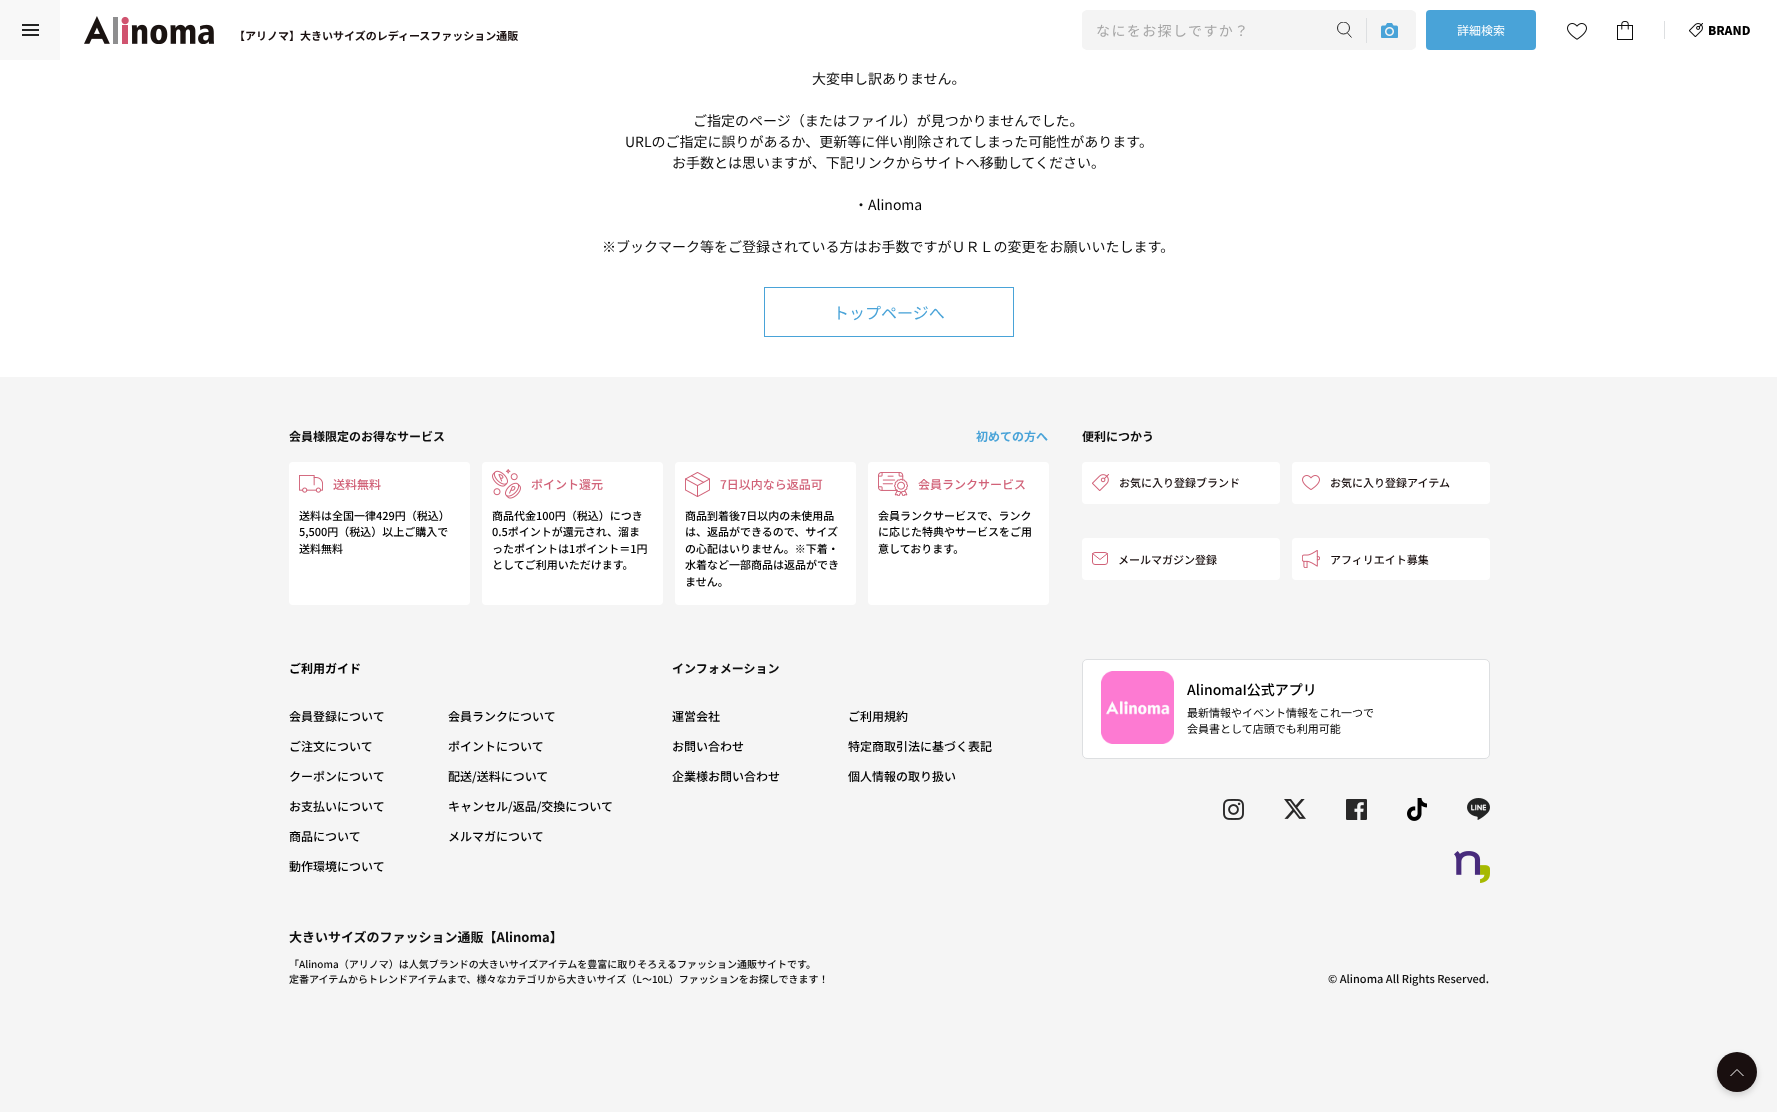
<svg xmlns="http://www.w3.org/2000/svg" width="1777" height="1112">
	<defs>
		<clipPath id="clip1"><rect x="1337" y="22" width="15" height="16" /></clipPath>
	</defs>
	<rect width="100%" height="100%" fill="#FFFFFF" />
	<rect x="0" y="0" width="60" height="60" fill="#F8F8F8" />
	<rect x="22" y="34" width="17" height="2" fill="#232424" />
	<rect x="22" y="24" width="17" height="2" fill="#232424" />
	<rect x="22" y="29" width="17" height="2" fill="#232424" />
	<image x="84" y="16" width="130" height="28" href="assets/img1.png" />
	<text x="234" y="40" font-family="Noto Sans JP" font-size="11" font-weight="700" fill="#190F0F">【アリノマ】大きいサイズのレディースファッション通販</text>
	<rect x="1122" y="10" width="254" height="40" fill="#F4F4F4" />
	<path d="M1376 50V10H1410C1413 10 1416 12 1416 14V46C1416 48 1413 50 1410 50Z" fill="#F4F4F4" />
	<path d="M1088 50C1085 50 1082 48 1082 46V14C1082 12 1085 10 1088 10H1122V50Z" fill="#F4F4F4" />
	<text x="1096" y="36" font-family="Noto Sans JP" font-size="14" letter-spacing="1.4" fill="#A5A5A5">なにをお探しですか？</text>
	<g clip-path="url(#clip1)">
		<circle cx="1343.5" cy="28" r="6" fill="none" stroke="#0E0E0E" stroke-width="0.9" />
	</g>
	<path d="M1347.5 33L1351.5 37.5" fill="none" stroke="#0E0E0E" stroke-width="0.9" />
	<rect x="1366" y="18" width="1" height="25" fill="#DDDFE1" />
	<image x="1381" y="23" width="17" height="15" href="assets/img2.png" />
	<rect x="1426" y="10" width="110" height="40" rx="4" fill="#49A3D8" />
	<text x="1457" y="35" font-family="Noto Sans JP" font-size="12" fill="#FFFFFF">詳細検索</text>
	<image x="1567" y="23" width="20" height="17" href="assets/img3.png" />
	<image x="1617" y="21" width="16" height="19" href="assets/img4.png" />
	<rect x="1664" y="21" width="1" height="18" fill="#DDDFE1" />
	<image x="1689" y="23" width="14" height="14" href="assets/img5.png" />
	<text x="1708" y="35" font-family="Noto Sans JP" font-size="12" font-weight="900" fill="#000000">BRAND</text>
	<g font-family="Noto Sans JP" font-size="14" fill="#0E0E0E">
		<text x="812" y="84">大変申し訳ありません。</text>
		<text x="693" y="126">ご指定のページ（またはファイル）が見つかりませんでした。</text>
		<text x="625" y="147">URLのご指定に誤りがあるか、更新等に伴い削除されてしまった可能性があります。</text>
		<text x="672" y="168">お手数とは思いますが、下記リンクからサイトへ移動してください。</text>
		<text x="854" y="210">・</text>
	</g>
	<text x="868" y="210" font-family="Noto Sans JP" font-size="14" fill="#000000">Alinoma</text>
	<text x="602" y="252" font-family="Noto Sans JP" font-size="14" fill="#0E0E0E">※ブックマーク等をご登録されている方はお手数ですがＵＲＬの変更をお願いいたします。</text>
	<rect x="764.5" y="287.5" width="249" height="49" fill="none" stroke="#49A3D8" />
	<text x="833" y="319" font-family="Noto Sans JP" font-size="16" fill="#49A3D8">トップページへ</text>
	<rect x="0" y="377" width="1777" height="735" fill="#F5F5F5" />
	<text x="289" y="441" font-family="Noto Sans JP" font-size="12" font-weight="700" fill="#0E0E0E">会員様限定のお得なサービス</text>
	<text x="976" y="441" font-family="Noto Sans JP" font-size="12" font-weight="700" fill="#49A3D8">初めての方へ</text>
	<rect x="289" y="462" width="181" height="143" rx="4" fill="#FFFFFF" />
	<image x="299" y="475" width="24" height="18" href="assets/img6.png" />
	<text x="333" y="489" font-family="Noto Sans JP" font-size="12" font-weight="500" fill="#D16278">送料無料</text>
	<g font-family="Noto Sans JP" font-size="11" font-weight="500" fill="#000000">
		<text x="299" y="520">送料は全国一律429円（税込）</text>
		<text x="299" y="536">5,500円（税込）以上ご購入で</text>
		<text x="299" y="553">送料無料</text>
	</g>
	<rect x="482" y="462" width="181" height="143" rx="4" fill="#FFFFFF" />
	<image x="492" y="469" width="29" height="30" href="assets/img7.png" />
	<text x="531" y="489" font-family="Noto Sans JP" font-size="12" font-weight="500" fill="#D16278">ポイント還元</text>
	<g font-family="Noto Sans JP" font-size="11" font-weight="500" fill="#000000">
		<text x="492" y="520">商品代金100円（税込）につき</text>
		<text x="492" y="536">0.5ポイントが還元され、溜ま</text>
		<text x="492" y="553">ったポイントは1ポイント＝1円</text>
		<text x="492" y="569">としてご利用いただけます。</text>
	</g>
	<rect x="675" y="462" width="181" height="143" rx="4" fill="#FFFFFF" />
	<image x="685" y="472" width="25" height="25" href="assets/img8.png" />
	<text x="720" y="489" font-family="Noto Sans JP" font-size="12" font-weight="500" fill="#D16278">7日以内なら返品可</text>
	<g font-family="Noto Sans JP" font-size="11" font-weight="500" fill="#000000">
		<text x="685" y="520">商品到着後7日以内の未使用品</text>
		<text x="685" y="536">は、返品ができるので、サイズ</text>
		<text x="685" y="553">の心配はいりません。※下着・</text>
		<text x="685" y="569">水着など一部商品は返品ができ</text>
		<text x="685" y="586">ません。</text>
	</g>
	<rect x="868" y="462" width="181" height="143" rx="4" fill="#FFFFFF" />
	<image x="878" y="472" width="30" height="24" href="assets/img9.png" />
	<text x="918" y="489" font-family="Noto Sans JP" font-size="12" font-weight="500" fill="#D16278">会員ランクサービス</text>
	<g font-family="Noto Sans JP" font-size="11" font-weight="500" fill="#000000">
		<text x="878" y="520">会員ランクサービスで、ランク</text>
		<text x="878" y="536">に応じた特典やサービスをご用</text>
		<text x="878" y="553">意しております。</text>
	</g>
	<text x="1082" y="441" font-family="Noto Sans JP" font-size="12" font-weight="700" fill="#0E0E0E">便利につかう</text>
	<rect x="1082" y="462" width="198" height="42" rx="4" fill="#FFFFFF" />
	<image x="1092" y="474" width="17" height="17" href="assets/img10.png" />
	<text x="1119" y="487" font-family="Noto Sans JP" font-size="11" font-weight="500" fill="#190F0F">お気に入り登録ブランド</text>
	<rect x="1292" y="462" width="198" height="42" rx="4" fill="#FFFFFF" />
	<image x="1302" y="475" width="18" height="15" href="assets/img11.png" />
	<text x="1330" y="487" font-family="Noto Sans JP" font-size="11" font-weight="500" fill="#190F0F">お気に入り登録アイテム</text>
	<rect x="1082" y="538" width="198" height="42" rx="4" fill="#FFFFFF" />
	<rect x="1092.5" y="552.5" width="15" height="12" rx="2.5" fill="none" stroke="#D16278" />
	<path d="M1107.5 553.5L1100 559.5L1092.5 553.5" fill="none" stroke="#D16278" stroke-linecap="round" stroke-linejoin="round" />
	<text x="1118" y="564" font-family="Noto Sans JP" font-size="11" font-weight="500" fill="#190F0F">メールマガジン登録</text>
	<rect x="1292" y="538" width="198" height="42" rx="4" fill="#FFFFFF" />
	<image x="1302" y="550" width="18" height="18" href="assets/img12.png" />
	<text x="1330" y="564" font-family="Noto Sans JP" font-size="11" font-weight="500" fill="#190F0F">アフィリエイト募集</text>
	<text x="289" y="673" font-family="Noto Sans JP" font-size="12" font-weight="700" fill="#000000">ご利用ガイド</text>
	<g font-family="Noto Sans JP" font-size="12" font-weight="500" fill="#000000">
		<text x="289" y="721">会員登録について</text>
		<text x="448" y="721">会員ランクについて</text>
		<text x="289" y="751">ご注文について</text>
		<text x="448" y="751">ポイントについて</text>
		<text x="289" y="781">クーポンについて</text>
		<text x="448" y="781">配送/送料について</text>
		<text x="289" y="811">お支払いについて</text>
		<text x="448" y="811">キャンセル/返品/交換について</text>
		<text x="289" y="841">商品について</text>
		<text x="448" y="841">メルマガについて</text>
		<text x="289" y="871">動作環境について</text>
	</g>
	<text x="672" y="673" font-family="Noto Sans JP" font-size="12" font-weight="700" fill="#0E0E0E">インフォメーション</text>
	<g font-family="Noto Sans JP" font-size="12" font-weight="500" fill="#000000">
		<text x="672" y="721">運営会社</text>
		<text x="848" y="721">ご利用規約</text>
		<text x="672" y="751">お問い合わせ</text>
		<text x="848" y="751">特定商取引法に基づく表記</text>
		<text x="672" y="781">企業様お問い合わせ</text>
		<text x="848" y="781">個人情報の取り扱い</text>
	</g>
	<rect x="1082.5" y="659.5" width="407" height="99" rx="4.5" fill="#FFFFFF" stroke="#DDDFE1" />
	<image x="1101" y="671" width="73" height="73" href="assets/img13.png" />
	<text x="1187" y="695" font-family="Noto Sans JP" font-size="14" font-weight="500" fill="#000000">AlinomaI公式アプリ</text>
	<g font-family="Noto Sans JP" font-size="11" fill="#000000">
		<text x="1187" y="717">最新情報やイベント情報をこれ一つで</text>
		<text x="1187" y="733">会員書として店頭でも利用可能</text>
	</g>
	<image x="1223" y="799" width="21" height="21" href="assets/img14.png" />
	<image x="1284" y="799" width="22" height="20" href="assets/img15.png" />
	<image x="1346" y="799" width="21" height="21" href="assets/img16.png" />
	<image x="1407" y="798" width="20" height="23" href="assets/img17.png" />
	<image x="1467" y="798" width="23" height="22" href="assets/img18.png" />
	<image x="1454" y="851" width="36" height="32" href="assets/img19.png" />
	<text x="289" y="942" font-family="Noto Sans JP" font-size="13" font-weight="700" fill="#0E0E0E">大きいサイズのファッション通販【Alinoma】</text>
	<g font-family="Noto Sans JP" font-size="10" font-weight="500" fill="#0E0E0E">
		<text x="289" y="968">「Alinoma（アリノマ）は人気ブランドの大きいサイズアイテムを豊富に取りそろえるファッション通販サイトです。</text>
		<text x="289" y="983">定番アイテムからトレンドアイテムまで、様々なカテゴリから大きいサイズ（L～10L）ファッションをお探しできます！</text>
	</g>
	<text x="1328" y="983" font-family="Noto Sans JP" font-size="11" font-weight="500" fill="#0E0E0E">© Alinoma All Rights Reserved.</text>
	<rect x="1717" y="1055" width="40" height="40" rx="20" fill="#000000" fill-opacity="0.16" filter="blur(3px)" />
	<circle cx="1737" cy="1072" r="20" fill="#190F0F" />
	<path d="M1730.5 1076L1737 1069.5L1743.5 1076" fill="none" stroke="#FFFFFF" />
</svg>
